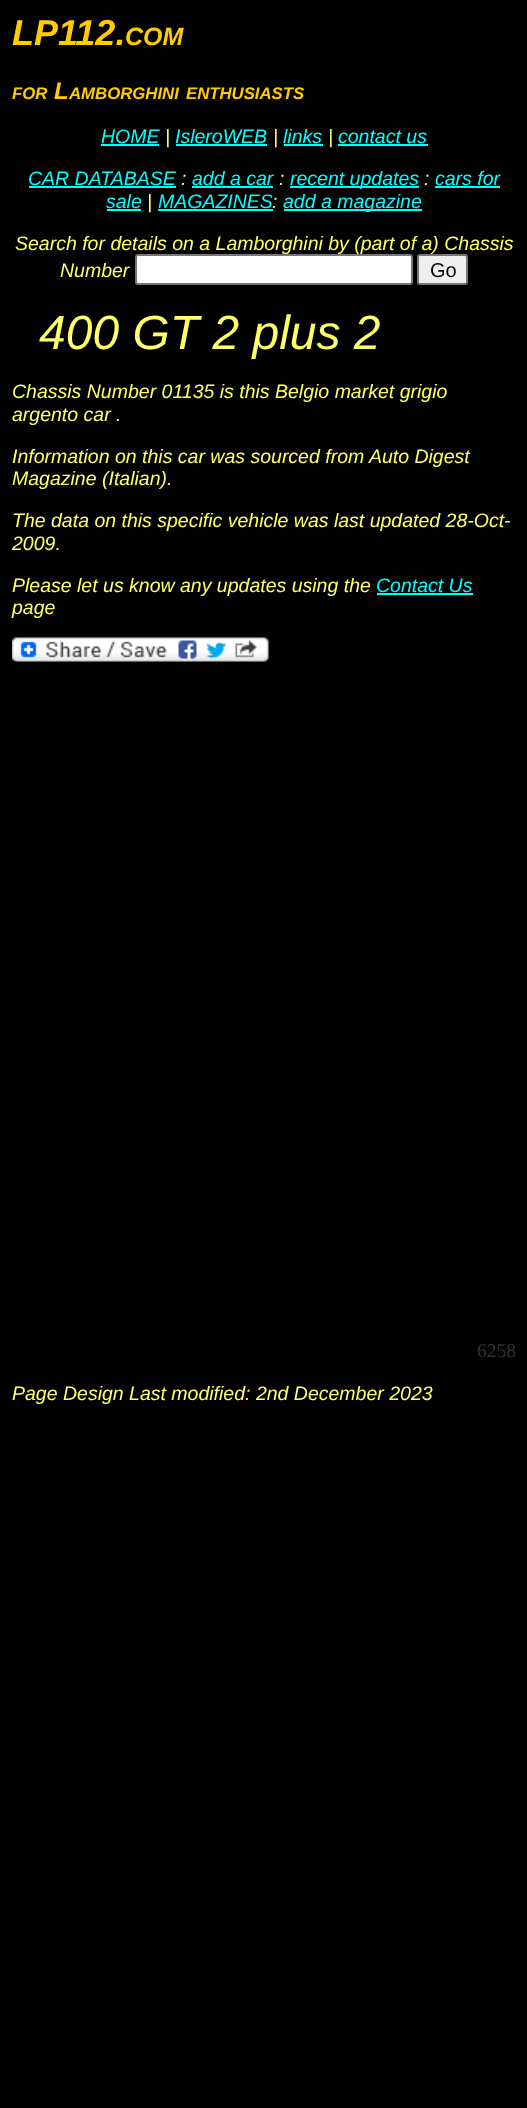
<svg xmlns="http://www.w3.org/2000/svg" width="527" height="2108">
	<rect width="100%" height="100%" fill="#000000" />
	<text x="12" y="45" font-family="Liberation Sans" font-size="36" font-weight="700" font-style="italic" fill="#FFCC00">LP112.</text>
	<text x="125" y="45" font-family="Liberation Sans" font-size="25" font-weight="700" font-style="italic" fill="#FFCC00">COM</text>
	<text x="12" y="99" font-family="Liberation Sans" font-size="16.75" font-weight="700" font-style="italic" fill="#FFCC00">FOR</text>
	<text x="54" y="99" font-family="Liberation Sans" font-size="24" font-weight="700" font-style="italic" fill="#FFCC00">L</text>
	<g font-family="Liberation Sans" font-size="16.75" font-weight="700" font-style="italic" fill="#FFCC00">
		<text x="69" y="99">AMBORGHINI</text>
		<text x="186" y="99">ENTHUSIASTS</text>
	</g>
	<text x="101" y="143" font-family="Liberation Sans" font-size="19.5" font-style="italic" fill="#00FFFF">HOME</text>
	<rect x="101" y="144" width="58" height="2" fill="#00FFFF" />
	<text x="165" y="143" font-family="Liberation Sans" font-size="19.5" font-style="italic" fill="#FFFF66">|</text>
	<text x="175" y="143" font-family="Liberation Sans" font-size="19.5" font-style="italic" fill="#00FFFF">IsleroWEB</text>
	<rect x="176" y="144" width="91" height="2" fill="#00FFFF" />
	<text x="273" y="143" font-family="Liberation Sans" font-size="19.5" font-style="italic" fill="#FFFF66">|</text>
	<text x="283" y="143" font-family="Liberation Sans" font-size="19.5" font-style="italic" fill="#00FFFF">links</text>
	<rect x="284" y="144" width="39" height="2" fill="#00FFFF" />
	<text x="328" y="143" font-family="Liberation Sans" font-size="19.5" font-style="italic" fill="#FFFF66">|</text>
	<text x="338" y="143" font-family="Liberation Sans" font-size="19.5" font-style="italic" fill="#00FFFF">contact us</text>
	<rect x="338" y="144" width="90" height="2" fill="#00FFFF" />
	<text x="28" y="185" font-family="Liberation Sans" font-size="19.5" font-style="italic" fill="#00FFFF">CAR DATABASE</text>
	<rect x="29" y="186" width="147" height="2" fill="#00FFFF" />
	<text x="181" y="185" font-family="Liberation Sans" font-size="19.5" font-style="italic" fill="#FFFF66">:</text>
	<text x="192" y="185" font-family="Liberation Sans" font-size="19.5" font-style="italic" fill="#00FFFF">add a car</text>
	<rect x="192" y="186" width="81" height="2" fill="#00FFFF" />
	<text x="279" y="185" font-family="Liberation Sans" font-size="19.5" font-style="italic" fill="#FFFF66">:</text>
	<rect x="290" y="186" width="129" height="2" fill="#00FFFF" />
	<text x="290" y="185" font-family="Liberation Sans" font-size="19.5" font-style="italic" fill="#00FFFF">recent updates</text>
	<text x="424" y="185" font-family="Liberation Sans" font-size="19.5" font-style="italic" fill="#FFFF66">:</text>
	<text x="435" y="185" font-family="Liberation Sans" font-size="19.5" font-style="italic" fill="#00FFFF">cars for</text>
	<rect x="435" y="186" width="65" height="2" fill="#00FFFF" />
	<text x="106" y="208" font-family="Liberation Sans" font-size="19.5" font-style="italic" fill="#00FFFF">sale</text>
	<rect x="107" y="209" width="34" height="2" fill="#00FFFF" />
	<text x="147" y="208" font-family="Liberation Sans" font-size="19.5" font-style="italic" fill="#FFFF66">|</text>
	<text x="158" y="208" font-family="Liberation Sans" font-size="19.5" font-style="italic" fill="#00FFFF">MAGAZINES</text>
	<rect x="158" y="209" width="115" height="2" fill="#00FFFF" />
	<text x="272" y="208" font-family="Liberation Sans" font-size="19.5" font-style="italic" fill="#FFFF66">:</text>
	<rect x="284" y="209" width="138" height="2" fill="#00FFFF" />
	<text x="283" y="208" font-family="Liberation Sans" font-size="19.5" font-style="italic" fill="#00FFFF">add a magazine</text>
	<g font-family="Liberation Sans" font-size="19.5" font-style="italic" fill="#FFFF66">
		<text x="15" y="250">Search for details on a Lamborghini by (part of a) Chassis</text>
		<text x="60" y="277">Number</text>
	</g>
	<rect x="136" y="255" width="276" height="29" rx="2" fill="#FFFFFF" stroke="#767676" stroke-width="2" />
	<rect x="418" y="255" width="49" height="29" rx="2" fill="#EFEFEF" stroke="#767676" stroke-width="2" />
	<text x="430" y="277" font-family="Liberation Sans" font-size="20" fill="#000000">Go</text>
	<text x="39" y="349" font-family="Liberation Sans" font-size="48" font-style="italic" fill="#FFFF66">400 GT 2 plus 2</text>
	<g font-family="Liberation Sans" font-size="19.5" font-style="italic" fill="#FFFF66">
		<text x="12" y="398">Chassis Number 01135 is this Belgio market grigio</text>
		<text x="12" y="421">argento car .</text>
		<text x="12" y="463">Information on this car was sourced from Auto Digest</text>
		<text x="12" y="485">Magazine (Italian).</text>
		<text x="12" y="527">The data on this specific vehicle was last updated 28-Oct-</text>
		<text x="12" y="550">2009.</text>
		<text x="12" y="592">Please let us know any updates using the</text>
	</g>
	<text x="376" y="592" font-family="Liberation Sans" font-size="19.5" font-style="italic" fill="#00FFFF">Contact Us</text>
	<rect x="377" y="593" width="96" height="2" fill="#00FFFF" />
	<text x="12" y="614" font-family="Liberation Sans" font-size="19.5" font-style="italic" fill="#FFFF66">page</text>
	<image x="12" y="637" width="257" height="25" href="assets/img1.png" />
	<text x="477" y="1357" font-family="Liberation Serif" font-size="19.5" fill="#333333">6258</text>
	<text x="12" y="1400" font-family="Liberation Sans" font-size="19.5" font-style="italic" fill="#FFFF66">Page Design Last modified: 2nd December 2023</text>
</svg>
